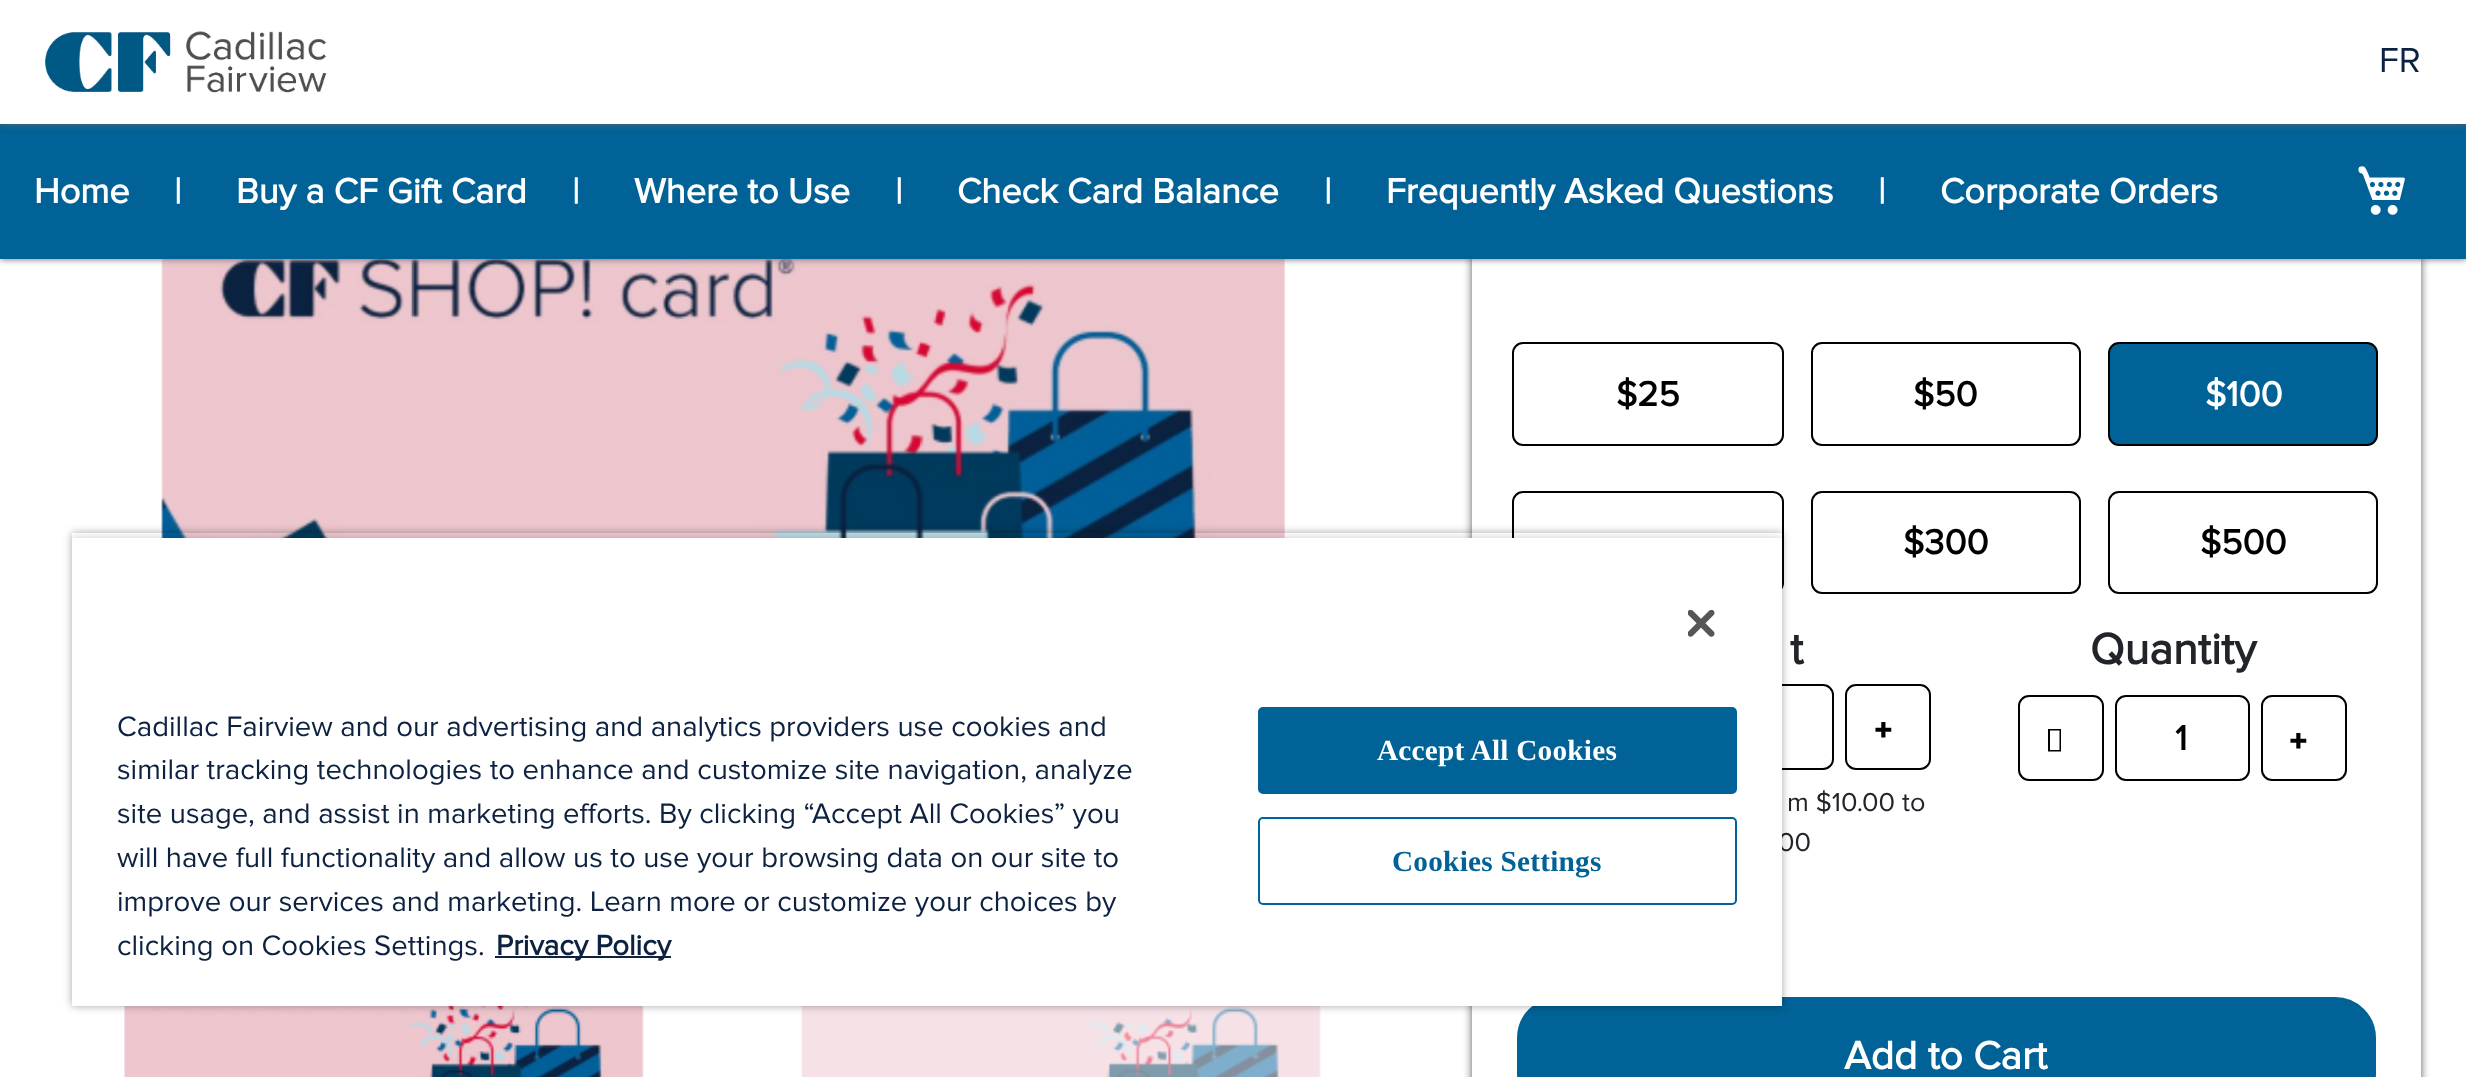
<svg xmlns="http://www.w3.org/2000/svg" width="2466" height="1077">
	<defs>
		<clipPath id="clip1"><path d="M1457 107H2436V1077H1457ZM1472 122H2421V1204H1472Z" clip-rule="evenodd" /></clipPath>
		<clipPath id="clip2"><path d="M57 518H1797V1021H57ZM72 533H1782V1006H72Z" clip-rule="evenodd" /></clipPath>
		<clipPath id="clip3"><rect x="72" y="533" width="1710" height="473" /></clipPath>
	</defs>
	<rect width="100%" height="100%" fill="#FFFFFF" />
	<image x="161" y="259" width="1124" height="279" href="assets/img3.png" />
	<rect x="0" y="124" width="2466" height="135" fill="#666666" filter="blur(3.5px)" />
	<g clip-path="url(#clip1)">
		<rect x="1472" y="122" width="949" height="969" fill="#575757" filter="blur(4.5px)" />
	</g>
	<rect x="0" y="124" width="2466" height="135" fill="#006296" />
	<rect x="0" y="0" width="2466" height="124" fill="#666666" filter="blur(3.5px)" />
	<rect x="0" y="0" width="2466" height="124" fill="#FFFFFF" />
	<image x="45" y="31" width="282" height="62" href="assets/img1.png" />
	<text x="2379" y="72" font-family="Proxima Nova" font-size="36" fill="#0D2240">FR</text>
	<g font-family="Proxima Nova" font-size="36" font-weight="700" fill="#FFFFFF">
		<text x="34" y="203">Home</text>
		<text x="174" y="203">|</text>
		<text x="236" y="203">Buy a CF Gift Card</text>
		<text x="572" y="203">|</text>
		<text x="634" y="203">Where to Use</text>
		<text x="895" y="203">|</text>
		<text x="957" y="203">Check Card Balance</text>
		<text x="1324" y="203">|</text>
		<text x="1386" y="203">Frequently Asked Questions</text>
		<text x="1878" y="203">|</text>
		<text x="1940" y="203">Corporate Orders</text>
	</g>
	<image x="2358" y="166" width="47" height="49" href="assets/img2.png" />
	<image x="124" y="1006" width="520" height="71" href="assets/img4.png" />
	<image x="801" y="1006" width="520" height="71" href="assets/img5.png" />
	<rect x="1513" y="343" width="270" height="102" rx="10" fill="none" stroke="#000000" stroke-width="2" />
	<text x="1616" y="406" font-family="Proxima Nova" font-size="36" font-weight="700" fill="#000000">$25</text>
	<rect x="1812" y="343" width="268" height="102" rx="10" fill="none" stroke="#000000" stroke-width="2" />
	<text x="1913" y="406" font-family="Proxima Nova" font-size="36" font-weight="700" fill="#000000">$50</text>
	<rect x="2109" y="343" width="268" height="102" rx="10" fill="#006296" stroke="#000000" stroke-width="2" />
	<text x="2205" y="406" font-family="Proxima Nova" font-size="36" font-weight="700" fill="#FFFFFF">$100</text>
	<rect x="1513" y="492" width="270" height="101" rx="10" fill="none" stroke="#000000" stroke-width="2" />
	<rect x="1812" y="492" width="268" height="101" rx="10" fill="none" stroke="#000000" stroke-width="2" />
	<text x="1903" y="554" font-family="Proxima Nova" font-size="36" font-weight="700" fill="#000000">$300</text>
	<rect x="2109" y="492" width="268" height="101" rx="10" fill="none" stroke="#000000" stroke-width="2" />
	<text x="2200" y="554" font-family="Proxima Nova" font-size="36" font-weight="700" fill="#000000">$500</text>
	<text x="1790" y="664" font-family="Proxima Nova" font-size="45" font-weight="700" fill="#212529">t</text>
	<rect x="1644" y="685" width="189" height="84" rx="10" fill="none" stroke="#000000" stroke-width="2" />
	<rect x="1846" y="685" width="84" height="84" rx="10" fill="none" stroke="#000000" stroke-width="2" />
	<text x="1874" y="741" font-family="Noto Sans" font-size="32" font-weight="900" fill="#000000">+</text>
	<g font-family="Proxima Nova" font-size="27" fill="#212529">
		<text x="1787" y="811">m $10.00 to</text>
		<text x="1778" y="851">00</text>
	</g>
	<text x="2090" y="664" font-family="Proxima Nova" font-size="45" font-weight="700" fill="#212529">Quantity</text>
	<rect x="2019" y="696" width="84" height="84" rx="10" fill="none" stroke="#000000" stroke-width="2" />
	<path d="M2048 751.5V729H2061V751.5ZM2050 750H2059.5V730.5H2050Z" fill="#000000" />
	<rect x="2116" y="696" width="133" height="84" rx="10" fill="none" stroke="#000000" stroke-width="2" />
	<text x="2175" y="750" font-family="Proxima Nova" font-size="36" font-weight="700" fill="#000000">1</text>
	<rect x="2262" y="696" width="84" height="84" rx="10" fill="none" stroke="#000000" stroke-width="2" />
	<text x="2289" y="752" font-family="Noto Sans" font-size="32" font-weight="900" fill="#000000">+</text>
	<rect x="1518" y="998" width="857" height="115" rx="40" fill="#006296" stroke="#006296" stroke-width="2" />
	<text x="1844" y="1069" font-family="Proxima Nova" font-size="40.5" font-weight="700" fill="#FFFFFF">Add to Cart</text>
	<g clip-path="url(#clip2)">
		<rect x="72" y="533" width="1710" height="473" fill="#000000" fill-opacity="0.35" filter="blur(4.5px)" />
	</g>
	<g clip-path="url(#clip3)">
		<rect x="72" y="538" width="1710" height="468" fill="#000000" fill-opacity="0.2" filter="blur(4.5px)" />
	</g>
	<rect x="72" y="538" width="1710" height="468" fill="#FFFFFF" />
	<image x="1688" y="610" width="27" height="27" href="assets/img6.png" />
	<g font-family="Proxima Nova" font-size="29.25" fill="#0D2240">
		<text x="117" y="736">Cadillac Fairview and our advertising and analytics providers use cookies and</text>
		<text x="117" y="779">similar tracking technologies to enhance and customize site navigation, analyze</text>
		<text x="117" y="823">site usage, and assist in marketing efforts. By clicking “Accept All Cookies” you</text>
		<text x="117" y="867">will have full functionality and allow us to use your browsing data on our site to</text>
		<text x="117" y="911">improve our services and marketing. Learn more or customize your choices by</text>
		<text x="117" y="955">clicking on Cookies Settings.</text>
	</g>
	<rect x="495" y="956" width="176" height="2" fill="#0D2240" />
	<text x="496" y="955" font-family="Proxima Nova" font-size="29.25" font-weight="700" fill="#0D2240">Privacy Policy</text>
	<rect x="1259" y="708" width="477" height="85" rx="4" fill="#006296" stroke="#006296" stroke-width="2" />
	<text x="1377" y="760" font-family="Liberation Serif" font-size="29.25" font-weight="700" letter-spacing="0.25" fill="#FFFFFF">Accept All Cookies</text>
	<rect x="1259" y="818" width="477" height="86" rx="4" fill="none" stroke="#006296" stroke-width="2" />
	<text x="1392" y="871" font-family="Liberation Serif" font-size="29.25" font-weight="700" letter-spacing="0.25" fill="#006296">Cookies Settings</text>
</svg>
